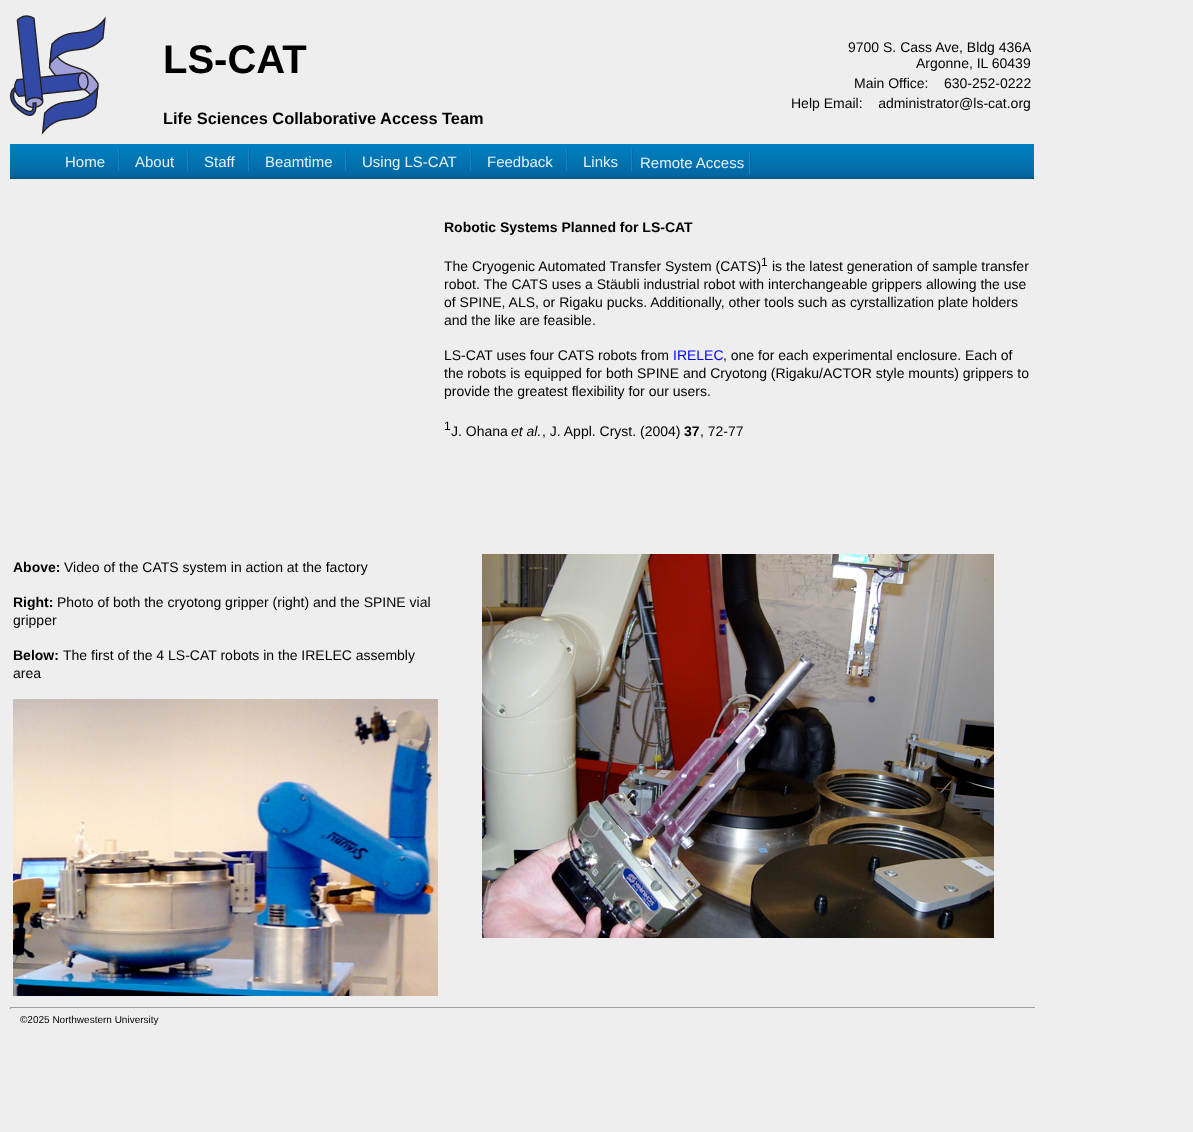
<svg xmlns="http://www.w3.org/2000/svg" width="1193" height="1132">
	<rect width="100%" height="100%" fill="#EEEEEE" />
	<image x="10" y="15" width="96" height="120" href="assets/img1.png" />
	<text x="163" y="73" font-family="Liberation Sans" font-size="40" font-weight="700" fill="#000000">LS-CAT</text>
	<text x="163" y="124" font-family="Liberation Sans" font-size="16.4" font-weight="700" fill="#000000">Life Sciences Collaborative Access Team</text>
	<g font-family="Liberation Sans" font-size="14" fill="#000000">
		<text x="848" y="52">9700 S. Cass Ave, Bldg 436A</text>
		<text x="916" y="68">Argonne, IL 60439</text>
		<text x="854" y="88" xml:space="preserve">Main Office:    630-252-0222</text>
		<text x="791" y="108" xml:space="preserve">Help Email:    administrator@ls-cat.org</text>
	</g>
	<image x="10" y="144" width="1024" height="35" href="assets/img2.png" />
	<image x="118" y="149" width="2" height="22" href="assets/img3.png" />
	<text x="65" y="167" font-family="Liberation Sans" font-size="15" fill="#E5F2FB">Home</text>
	<image x="187" y="149" width="2" height="22" href="assets/img3.png" />
	<text x="135" y="167" font-family="Liberation Sans" font-size="15" fill="#E5F2FB">About</text>
	<image x="248" y="149" width="2" height="22" href="assets/img3.png" />
	<text x="204" y="167" font-family="Liberation Sans" font-size="15" fill="#E5F2FB">Staff</text>
	<image x="345" y="149" width="2" height="22" href="assets/img3.png" />
	<text x="265" y="167" font-family="Liberation Sans" font-size="15" fill="#E5F2FB">Beamtime</text>
	<image x="470" y="149" width="2" height="22" href="assets/img3.png" />
	<text x="362" y="167" font-family="Liberation Sans" font-size="15" fill="#E5F2FB">Using LS-CAT</text>
	<image x="566" y="149" width="2" height="22" href="assets/img3.png" />
	<text x="487" y="167" font-family="Liberation Sans" font-size="15" fill="#E5F2FB">Feedback</text>
	<image x="631" y="149" width="2" height="22" href="assets/img3.png" />
	<text x="583" y="167" font-family="Liberation Sans" font-size="15" fill="#E5F2FB">Links</text>
	<image x="749" y="152" width="2" height="22" href="assets/img3.png" />
	<text x="640" y="168" font-family="Liberation Sans" font-size="15" fill="#E5F2FB">Remote Access</text>
	<text x="444" y="232" font-family="Liberation Sans" font-size="14" font-weight="700" fill="#000000">Robotic Systems Planned for LS-CAT</text>
	<text x="444" y="271" font-family="Liberation Sans" font-size="14" fill="#000000">The Cryogenic Automated Transfer System (CATS)</text>
	<text x="761" y="266" font-family="Liberation Sans" font-size="12" fill="#000000">1</text>
	<g font-family="Liberation Sans" font-size="14" fill="#000000">
		<text x="772" y="271">is the latest generation of sample transfer</text>
		<text x="444" y="289">robot. The CATS uses a Stäubli industrial robot with interchangeable grippers allowing the use</text>
		<text x="444" y="307">of SPINE, ALS, or Rigaku pucks. Additionally, other tools such as cyrstallization plate holders</text>
		<text x="444" y="325">and the like are feasible.</text>
		<text x="444" y="360">LS-CAT uses four CATS robots from</text>
	</g>
	<text x="673" y="360" font-family="Liberation Sans" font-size="14" fill="#0000FF">IRELEC</text>
	<g font-family="Liberation Sans" font-size="14" fill="#000000">
		<text x="723" y="360">, one for each experimental enclosure. Each of</text>
		<text x="444" y="378">the robots is equipped for both SPINE and Cryotong (Rigaku/ACTOR style mounts) grippers to</text>
		<text x="444" y="396">provide the greatest flexibility for our users.</text>
	</g>
	<text x="444" y="430" font-family="Liberation Sans" font-size="12" fill="#000000">1</text>
	<text x="451" y="436" font-family="Liberation Sans" font-size="14" fill="#000000">J. Ohana</text>
	<text x="511" y="436" font-family="Liberation Sans" font-size="14" font-style="italic" fill="#000000">et al.</text>
	<text x="542" y="436" font-family="Liberation Sans" font-size="14" fill="#000000">, J. Appl. Cryst. (2004)</text>
	<text x="684" y="436" font-family="Liberation Sans" font-size="14" font-weight="700" fill="#000000">37</text>
	<text x="700" y="436" font-family="Liberation Sans" font-size="14" fill="#000000">, 72-77</text>
	<text x="13" y="572" font-family="Liberation Sans" font-size="14" font-weight="700" fill="#000000">Above:</text>
	<text x="64" y="572" font-family="Liberation Sans" font-size="14" fill="#000000">Video of the CATS system in action at the factory</text>
	<text x="13" y="607" font-family="Liberation Sans" font-size="14" font-weight="700" fill="#000000">Right:</text>
	<g font-family="Liberation Sans" font-size="14" fill="#000000">
		<text x="57" y="607">Photo of both the cryotong gripper (right) and the SPINE vial</text>
		<text x="13" y="625">gripper</text>
	</g>
	<text x="13" y="660" font-family="Liberation Sans" font-size="14" font-weight="700" fill="#000000">Below:</text>
	<g font-family="Liberation Sans" font-size="14" fill="#000000">
		<text x="63" y="660">The first of the 4 LS-CAT robots in the IRELEC assembly</text>
		<text x="13" y="678">area</text>
	</g>
	<image x="13" y="699" width="425" height="297" href="assets/img4.png" />
	<image x="482" y="554" width="512" height="384" href="assets/img5.png" />
	<rect x="10" y="1007" width="1026" height="1" fill="#9F9F9F" />
	<rect x="1035" y="1007" width="1" height="2" fill="#EEEEEE" />
	<rect x="10" y="1007" width="1" height="2" fill="#9F9F9F" />
	<text x="20" y="1023" font-family="Liberation Sans" font-size="10" fill="#000000">©2025 Northwestern University</text>
</svg>
